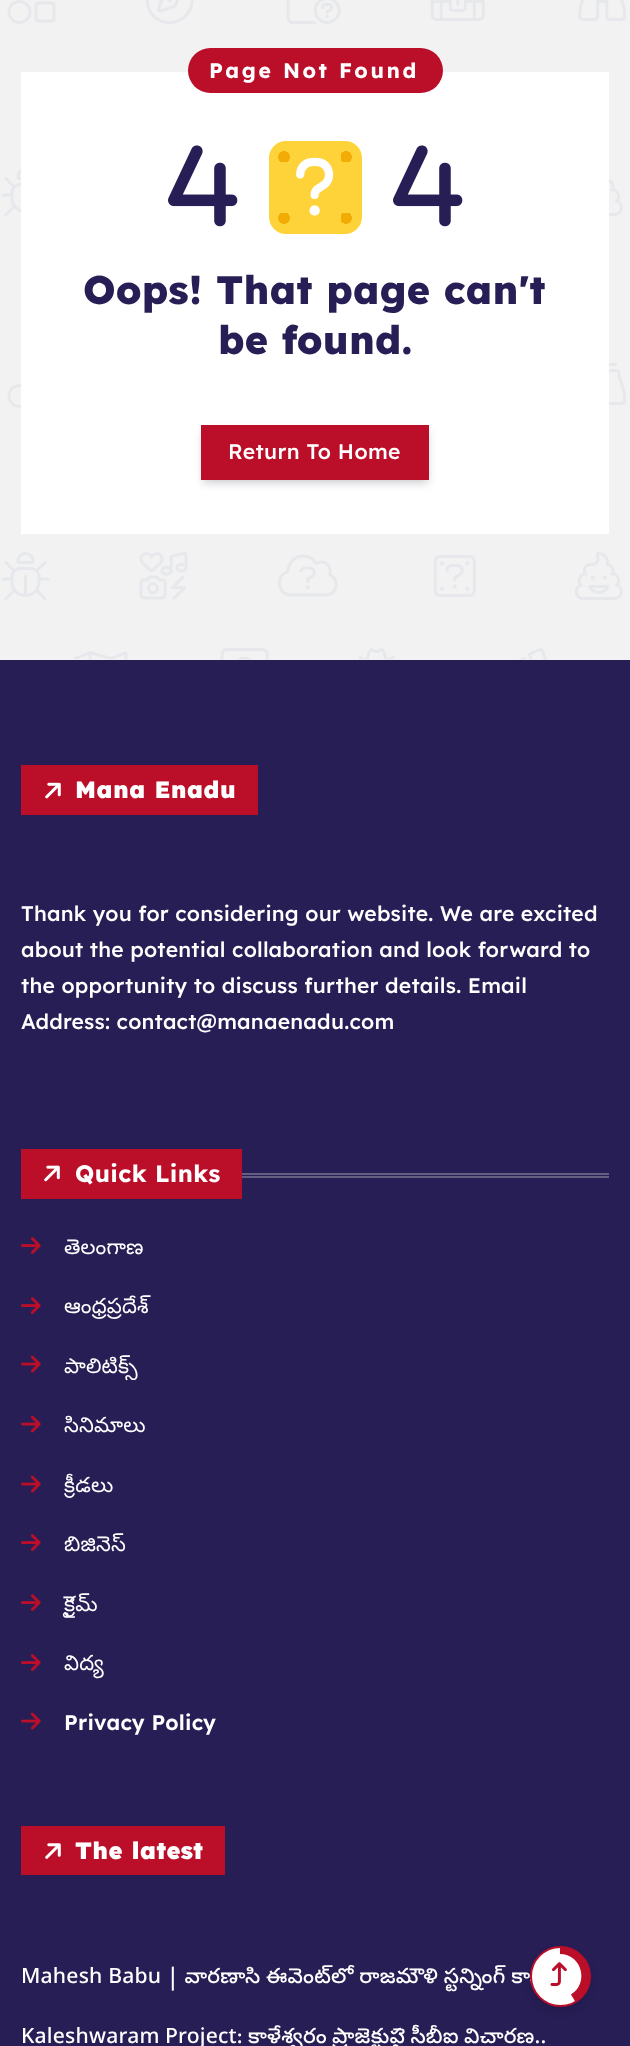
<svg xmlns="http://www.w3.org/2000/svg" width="630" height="2046">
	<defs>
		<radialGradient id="g1" gradientUnits="userSpaceOnUse" cx="346" cy="218" r="5.9"><stop offset="1" stop-color="#F3AB06" /><stop offset="1" stop-color="#FED33A" /></radialGradient>
		<radialGradient id="g2" gradientUnits="userSpaceOnUse" cx="284" cy="218" r="5.9"><stop offset="1" stop-color="#F3AB06" /><stop offset="1" stop-color="#FED33A" /></radialGradient>
		<radialGradient id="g3" gradientUnits="userSpaceOnUse" cx="284" cy="157" r="5.9"><stop offset="1" stop-color="#F3AB06" /><stop offset="1" stop-color="#FED33A" /></radialGradient>
		<radialGradient id="g4" gradientUnits="userSpaceOnUse" cx="346" cy="157" r="5.9"><stop offset="1" stop-color="#F3AB06" /><stop offset="1" stop-color="#FED33A" /></radialGradient>
		<clipPath id="clip1"><rect x="531" y="1947" width="59" height="59" rx="29.5" /></clipPath>
	</defs>
	<rect width="100%" height="100%" fill="#F2F2F2" />
	<image x="1" y="0" width="625" height="660" href="assets/img1.png" />
	<rect x="21" y="72" width="588" height="462" fill="#FFFFFF" />
	<rect x="188" y="48" width="255" height="45" rx="22.5" fill="#BA0E29" />
	<text x="209" y="78" font-family="Lexend Deca" font-size="21.1" font-weight="700" letter-spacing="2.6" fill="#FFFFFF">Page Not Found</text>
	<image x="168" y="145" width="70" height="82" href="assets/img2.png" />
	<rect x="269" y="141" width="93" height="93" rx="17" fill="#FED33A" />
	<rect x="341" y="213" width="11" height="11" fill="url(#g1)" />
	<rect x="278" y="213" width="12" height="11" fill="url(#g2)" />
	<rect x="278" y="151" width="12" height="11" fill="url(#g3)" />
	<rect x="341" y="151" width="11" height="11" fill="url(#g4)" />
	<image x="296" y="157" width="38" height="59" href="assets/img3.png" />
	<image x="393" y="145" width="70" height="82" href="assets/img2.png" />
	<g font-family="Lexend Deca" font-size="39.6" font-weight="800" letter-spacing="0.2" fill="#271E55">
		<text x="83" y="304">Oops! That page can't</text>
		<text x="218" y="354">be found.</text>
	</g>
	<rect x="203" y="431" width="225" height="52" fill="#070A19" fill-opacity="0.2" filter="blur(4px)" />
	<rect x="201" y="425" width="228" height="55" fill="#BA0E29" />
	<text x="228" y="459" font-family="Lexend Deca" font-size="21.1" font-weight="500" letter-spacing="0.4" fill="#FFFFFF">Return To Home</text>
	<rect x="0" y="660" width="630" height="1386" fill="#271E55" />
	<rect x="21" y="765" width="237" height="50" fill="#BA0E29" />
	<image x="45" y="782" width="16" height="17" href="assets/img4.png" />
	<text x="75" y="798" font-family="Lexend Deca" font-size="23.75" font-weight="900" letter-spacing="0.4" fill="#FFFFFF">Mana Enadu</text>
	<g font-family="Lexend Deca" font-size="21.1" font-weight="500" letter-spacing="0.2" fill="#FFFFFF">
		<text x="21" y="921">Thank you for considering our website. We are excited</text>
		<text x="21" y="957">about the potential collaboration and look forward to</text>
		<text x="21" y="993">the opportunity to discuss further details. Email</text>
		<text x="21" y="1029">Address: contact@manaenadu.com</text>
	</g>
	<rect x="21" y="1149" width="221" height="50" fill="#BA0E29" />
	<image x="44" y="1165" width="16" height="17" href="assets/img5.png" />
	<text x="75" y="1182" font-family="Lexend Deca" font-size="23.75" font-weight="700" letter-spacing="0.4" fill="#FFFFFF">Quick Links</text>
	<rect x="242" y="1173" width="367" height="2" fill="#635E7F" />
	<rect x="242" y="1176" width="367" height="2" fill="#635E7F" />
	<image x="21" y="1237" width="20" height="17" href="assets/img6.png" />
	<text x="64" y="1254" font-family="Noto Sans Telugu" font-size="21.1" letter-spacing="0.2" fill="#FFFFFF">తెలంగాణ</text>
	<image x="21" y="1297" width="20" height="17" href="assets/img6.png" />
	<text x="64" y="1313" font-family="Noto Sans Telugu" font-size="21.1" letter-spacing="0.2" fill="#FFFFFF">ఆంధ్రప్రదేశ్</text>
	<image x="21" y="1355" width="20" height="18" href="assets/img7.png" />
	<text x="64" y="1373" font-family="Noto Sans Telugu" font-size="21.1" letter-spacing="0.2" fill="#FFFFFF">పాలిటిక్స్</text>
	<image x="21" y="1415" width="20" height="18" href="assets/img7.png" />
	<text x="64" y="1432" font-family="Noto Sans Telugu" font-size="21.1" letter-spacing="0.2" fill="#FFFFFF">సినిమాలు</text>
	<image x="21" y="1475" width="20" height="18" href="assets/img7.png" />
	<text x="64" y="1492" font-family="Noto Sans Telugu" font-size="21.1" letter-spacing="0.2" fill="#FFFFFF">క్రీడలు</text>
	<image x="21" y="1534" width="20" height="17" href="assets/img6.png" />
	<text x="64" y="1551" font-family="Noto Sans Telugu" font-size="21.1" letter-spacing="0.2" fill="#FFFFFF">బిజినెస్</text>
	<image x="21" y="1594" width="20" height="17" href="assets/img6.png" />
	<text x="64" y="1611" font-family="Noto Sans Telugu" font-size="21.1" letter-spacing="0.2" fill="#FFFFFF">క్రైమ్</text>
	<image x="21" y="1654" width="20" height="17" href="assets/img6.png" />
	<text x="64" y="1670" font-family="Noto Sans Telugu" font-size="21.1" letter-spacing="0.2" fill="#FFFFFF">విద్య</text>
	<image x="21" y="1712" width="20" height="18" href="assets/img7.png" />
	<text x="64" y="1730" font-family="Lexend Deca" font-size="21.1" font-weight="600" letter-spacing="0.2" fill="#FFFFFF">Privacy Policy</text>
	<rect x="21" y="1826" width="204" height="49" fill="#BA0E29" />
	<image x="45" y="1843" width="16" height="16" href="assets/img8.png" />
	<text x="75" y="1859" font-family="Lexend Deca" font-size="23.75" font-weight="900" letter-spacing="0.4" fill="#FFFFFF">The latest</text>
	<g font-family="Noto Sans Telugu" font-size="21.1" font-weight="500" letter-spacing="0.2" fill="#FFFFFF">
		<text x="21" y="1983" word-spacing="-0.5">Mahesh Babu | వారణాసి ఈవెంట్‌లో రాజమౌళి స్ట‌న్నింగ్ కామ</text>
		<text x="21" y="2043" word-spacing="-1">Kaleshwaram Project: కాళేశ్వరం ప్రాజెక్టుపై సీబీఐ విచారణ..</text>
	</g>
	<rect x="531" y="1952" width="59" height="58" rx="29" fill="#070A19" fill-opacity="0.2" filter="blur(4px)" />
	<circle cx="560.5" cy="1976.5" r="29.5" fill="#FFFFFF" />
	<g clip-path="url(#clip1)">
		<path d="M560 1948C588 1948 597.5 1985.5 574 1999.5" fill="none" stroke="#BA0E29" stroke-width="11.9" />
	</g>
	<circle cx="560.5" cy="1976.5" r="29.5" fill="none" stroke="#BA0E29" stroke-width="2" />
	<image x="550" y="1962" width="17" height="24" href="assets/img9.png" />
</svg>
